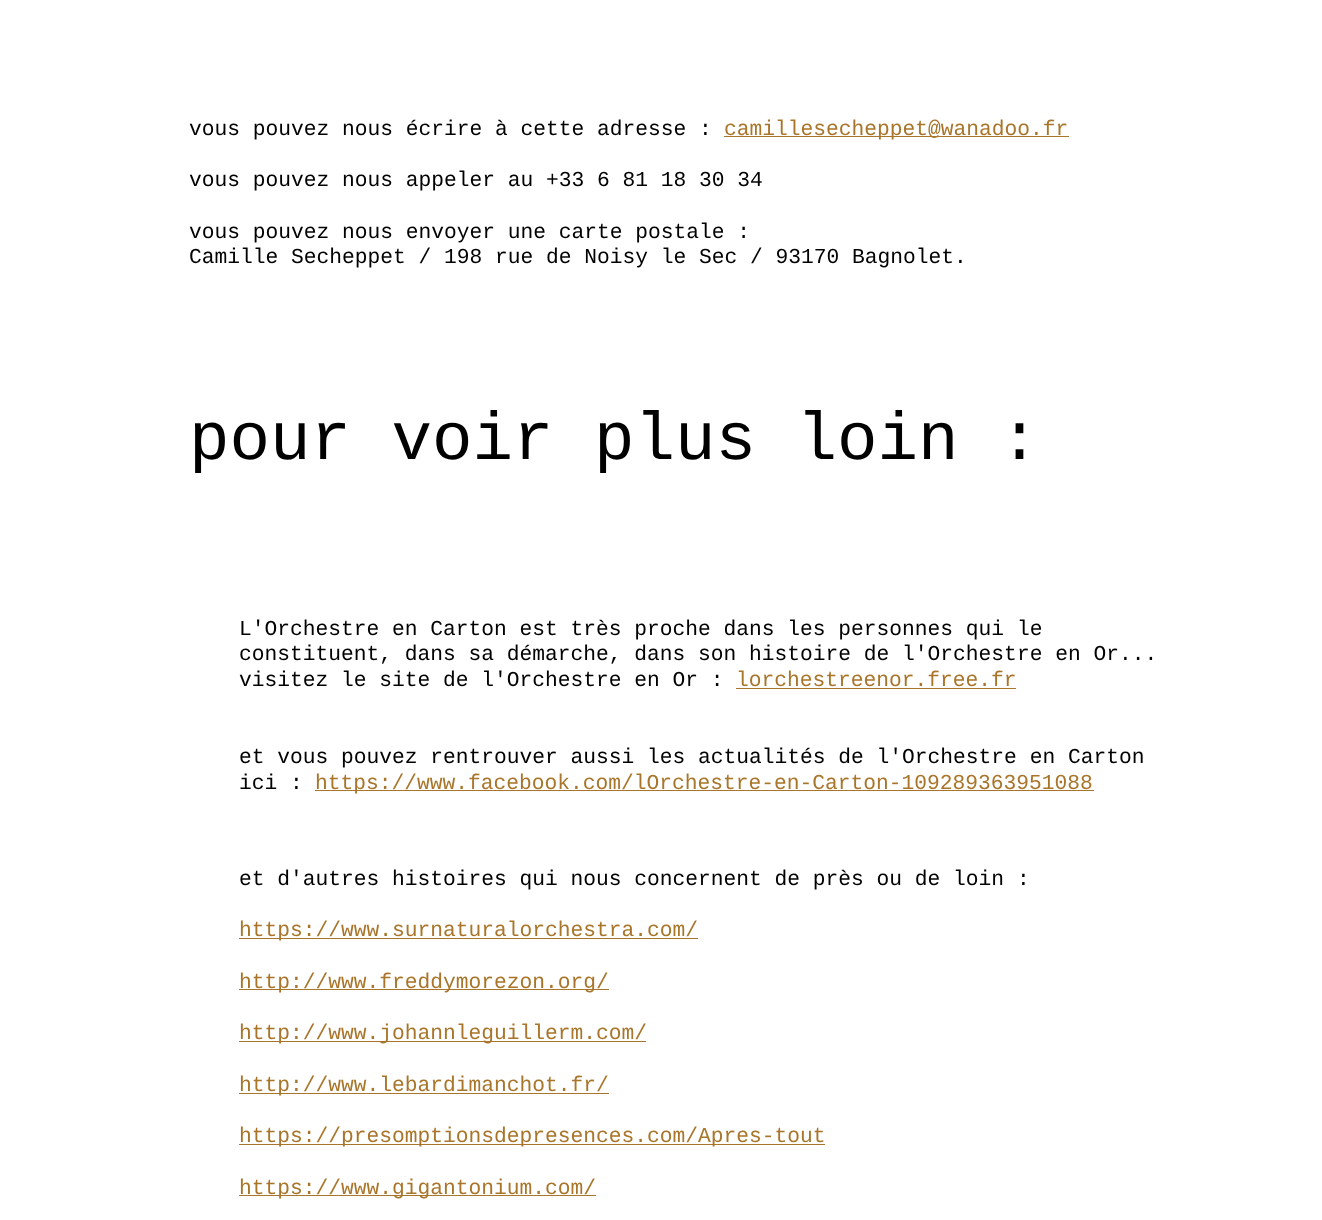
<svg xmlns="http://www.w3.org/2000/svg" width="1322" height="1220">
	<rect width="100%" height="100%" fill="#FFFFFF" />
	<text x="189" y="135" font-family="Liberation Mono" font-size="21.25" fill="#000000">vous pouvez nous écrire à cette adresse :</text>
	<rect x="724" y="136" width="345" height="1" fill="#A9752A" />
	<text x="724" y="135" font-family="Liberation Mono" font-size="21.25" fill="#A9752A">camillesecheppet@wanadoo.fr</text>
	<g font-family="Liberation Mono" font-size="21.25" fill="#000000">
		<text x="189" y="186">vous pouvez nous appeler au +33 6 81 18 30 34</text>
		<text x="189" y="238">vous pouvez nous envoyer une carte postale :</text>
		<text x="189" y="263">Camille Secheppet / 198 rue de Noisy le Sec / 93170 Bagnolet.</text>
	</g>
	<text x="189" y="459" font-family="Liberation Mono" font-size="67.5" fill="#000000">pour voir plus loin :</text>
	<g font-family="Liberation Mono" font-size="21.25" fill="#000000">
		<text x="239" y="635">L'Orchestre en Carton est très proche dans les personnes qui le</text>
		<text x="239" y="660">constituent, dans sa démarche, dans son histoire de l'Orchestre en Or...</text>
		<text x="239" y="686">visitez le site de l'Orchestre en Or :</text>
	</g>
	<text x="736" y="686" font-family="Liberation Mono" font-size="21.25" fill="#A9752A">lorchestreenor.free.fr</text>
	<rect x="736" y="688" width="280" height="1" fill="#A9752A" />
	<g font-family="Liberation Mono" font-size="21.25" fill="#000000">
		<text x="239" y="763">et vous pouvez rentrouver aussi les actualités de l'Orchestre en Carton</text>
		<text x="239" y="789">ici :</text>
	</g>
	<rect x="315" y="790" width="779" height="1" fill="#A9752A" />
	<text x="315" y="789" font-family="Liberation Mono" font-size="21.25" fill="#A9752A">https://www.facebook.com/lOrchestre-en-Carton-109289363951088</text>
	<text x="239" y="885" font-family="Liberation Mono" font-size="21.25" fill="#000000">et d'autres histoires qui nous concernent de près ou de loin :</text>
	<rect x="239" y="938" width="459" height="1" fill="#A9752A" />
	<text x="239" y="936" font-family="Liberation Mono" font-size="21.25" fill="#A9752A">https://www.surnaturalorchestra.com/</text>
	<rect x="239" y="989" width="370" height="1" fill="#A9752A" />
	<text x="239" y="988" font-family="Liberation Mono" font-size="21.25" fill="#A9752A">http://www.freddymorezon.org/</text>
	<rect x="239" y="1041" width="407" height="1" fill="#A9752A" />
	<text x="239" y="1039" font-family="Liberation Mono" font-size="21.25" fill="#A9752A">http://www.johannleguillerm.com/</text>
	<rect x="239" y="1093" width="370" height="1" fill="#A9752A" />
	<text x="239" y="1091" font-family="Liberation Mono" font-size="21.25" fill="#A9752A">http://www.lebardimanchot.fr/</text>
	<rect x="239" y="1144" width="586" height="1" fill="#A9752A" />
	<text x="239" y="1142" font-family="Liberation Mono" font-size="21.25" fill="#A9752A">https://presomptionsdepresences.com/Apres-tout</text>
	<rect x="239" y="1195" width="357" height="1" fill="#A9752A" />
	<text x="239" y="1194" font-family="Liberation Mono" font-size="21.25" fill="#A9752A">https://www.gigantonium.com/</text>
</svg>
